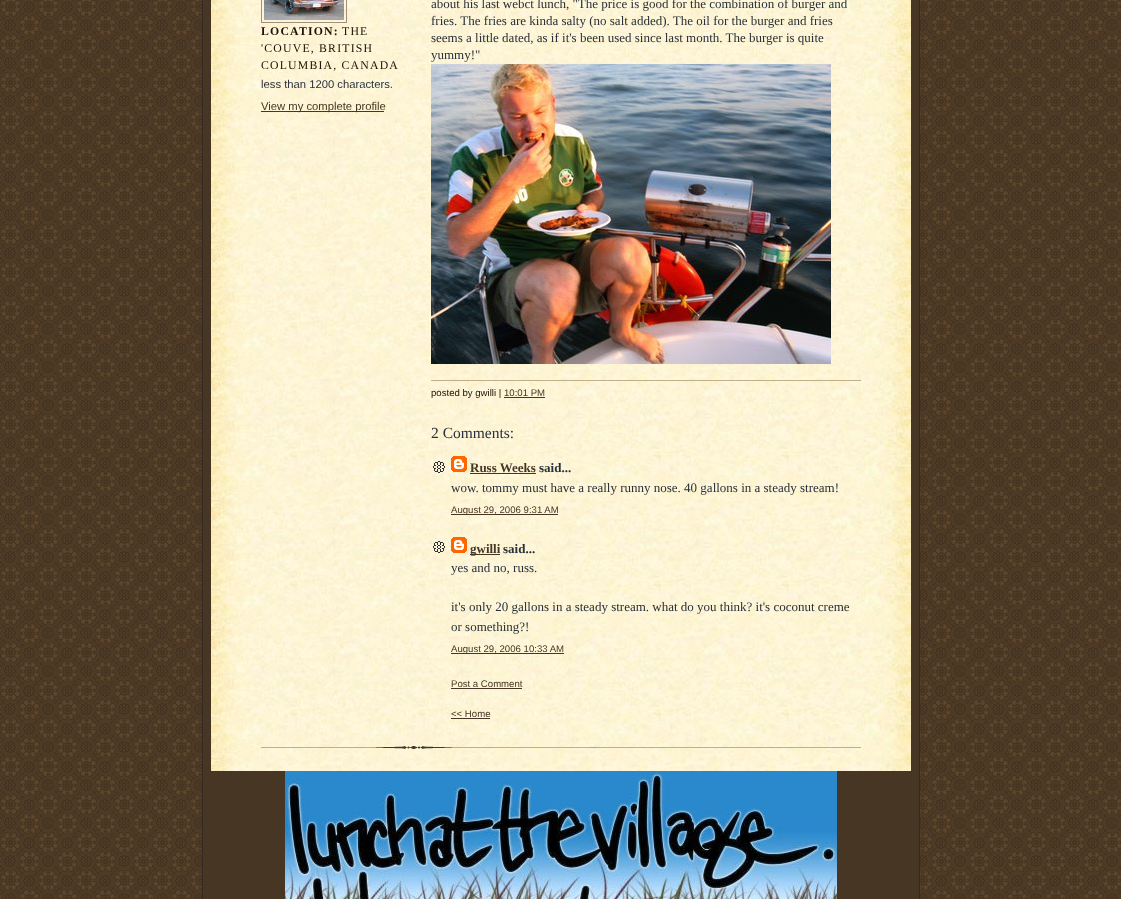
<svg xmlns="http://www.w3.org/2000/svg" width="1121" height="899">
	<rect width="100%" height="100%" fill="#FFFFFF" />
	<image x="0" y="0" width="1121" height="899" href="assets/img1.png" />
	<rect x="203" y="0" width="716" height="899" fill="#473624" />
	<rect x="919" y="0" width="1" height="899" fill="#332A24" />
	<rect x="202" y="0" width="1" height="899" fill="#332A24" />
	<image x="211" y="0" width="700" height="771" href="assets/img2.png" />
	<rect x="261.5" y="-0.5" width="85" height="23" fill="none" stroke="#A2907D" />
	<image x="264" y="0" width="80" height="20" href="assets/img3.png" />
	<text x="261" y="35" font-family="Liberation Serif" font-size="11.75" font-weight="700" letter-spacing="1.2" fill="#211104">LOCATION:</text>
	<g font-family="Liberation Serif" font-size="11.75" letter-spacing="1.2" fill="#211104">
		<text x="342" y="35">THE</text>
		<text x="261" y="52">'COUVE, BRITISH</text>
		<text x="261" y="69">COLUMBIA, CANADA</text>
	</g>
	<text x="261" y="88" font-family="Liberation Sans" font-size="11.25" fill="#29303B">less than 1200 characters.</text>
	<rect x="261" y="111" width="123" height="1" fill="#473624" />
	<text x="261" y="110" font-family="Liberation Sans" font-size="11.25" fill="#473624">View my complete profile</text>
	<g font-family="Liberation Serif" font-size="13" fill="#29303B">
		<text x="431" y="8">about his last webct lunch, "The price is good for the combination of burger and</text>
		<text x="431" y="25">fries. The fries are kinda salty (no salt added). The oil for the burger and fries</text>
		<text x="431" y="42">seems a little dated, as if it's been used since last month. The burger is quite</text>
		<text x="431" y="59">yummy!"</text>
	</g>
	<image x="431" y="64" width="400" height="300" href="assets/img4.png" />
	<rect x="431" y="380" width="430" height="1" fill="#BFB186" />
	<text x="431" y="396" font-family="Liberation Sans" font-size="9.6" fill="#211104">posted by gwilli |</text>
	<text x="504" y="396" font-family="Liberation Sans" font-size="9.6" fill="#473624">10:01 PM</text>
	<rect x="504" y="397" width="41" height="1" fill="#473624" />
	<text x="431" y="438" font-family="Liberation Serif" font-size="15.5" fill="#29303B">2 Comments:</text>
	<image x="433" y="461" width="12" height="12" href="assets/img5.png" />
	<image x="451" y="456" width="16" height="16" href="assets/img6.png" />
	<text x="470" y="472" font-family="Liberation Serif" font-size="13" font-weight="700" fill="#473624">Russ Weeks</text>
	<rect x="470" y="473" width="66" height="1" fill="#473624" />
	<text x="539" y="472" font-family="Liberation Serif" font-size="13" font-weight="700" fill="#29303B">said...</text>
	<text x="451" y="492" font-family="Liberation Serif" font-size="13" fill="#29303B">wow. tommy must have a really runny nose. 40 gallons in a steady stream!</text>
	<rect x="451" y="514" width="107" height="1" fill="#473624" />
	<text x="451" y="513" font-family="Liberation Sans" font-size="9.6" fill="#473624">August 29, 2006 9:31 AM</text>
	<image x="433" y="541" width="12" height="12" href="assets/img7.png" />
	<image x="451" y="537" width="16" height="16" href="assets/img8.png" />
	<rect x="470" y="554" width="30" height="1" fill="#473624" />
	<text x="470" y="553" font-family="Liberation Serif" font-size="13" font-weight="700" fill="#473624">gwilli</text>
	<text x="503" y="553" font-family="Liberation Serif" font-size="13" font-weight="700" fill="#29303B">said...</text>
	<g font-family="Liberation Serif" font-size="13" fill="#29303B">
		<text x="451" y="572">yes and no, russ.</text>
		<text x="451" y="611">it's only 20 gallons in a steady stream. what do you think? it's coconut creme</text>
		<text x="451" y="631">or something?!</text>
	</g>
	<rect x="451" y="653" width="113" height="1" fill="#473624" />
	<g font-family="Liberation Sans" font-size="9.6" fill="#473624">
		<text x="451" y="652">August 29, 2006 10:33 AM</text>
		<text x="451" y="687">Post a Comment</text>
	</g>
	<rect x="451" y="688" width="71" height="1" fill="#473624" />
	<text x="451" y="717" font-family="Liberation Sans" font-size="9.6" fill="#473624">&lt;&lt; Home</text>
	<rect x="451" y="718" width="39" height="1" fill="#473624" />
	<image x="261" y="746" width="600" height="3" href="assets/img9.png" />
	<image x="285" y="771" width="552" height="128" href="assets/img10.png" />
</svg>
